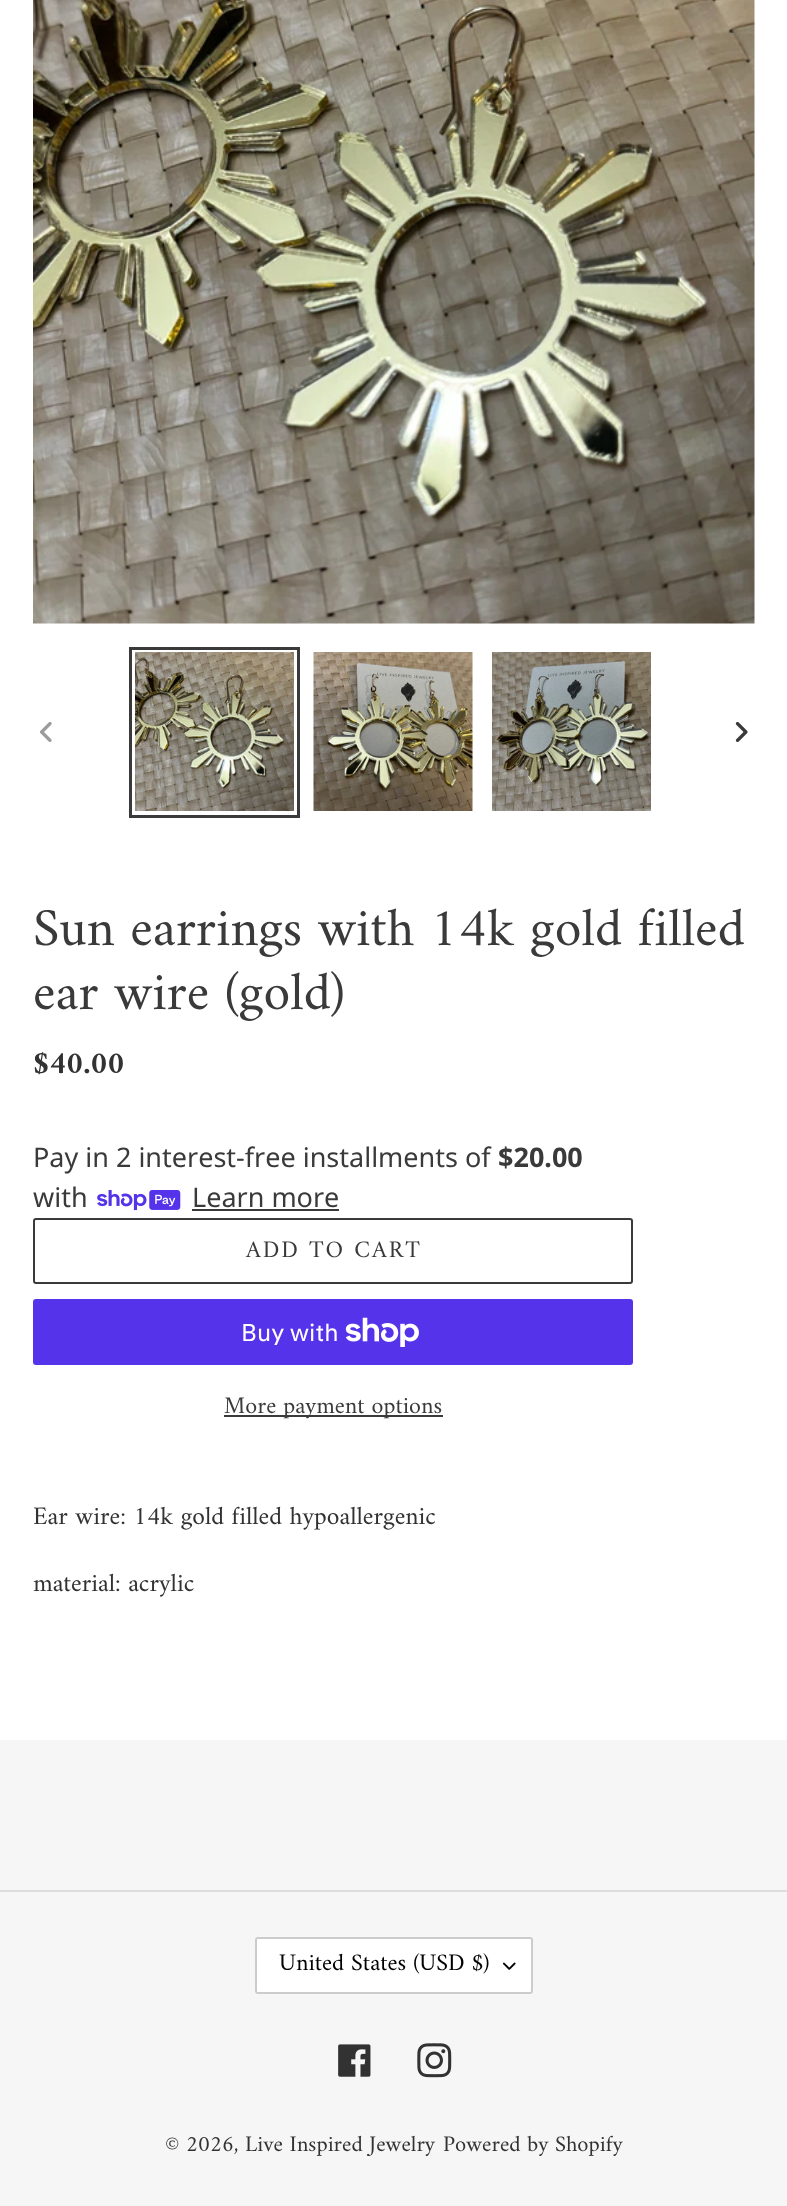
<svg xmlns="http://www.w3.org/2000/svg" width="787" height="2206">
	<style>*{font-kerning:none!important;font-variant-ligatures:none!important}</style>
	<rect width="100%" height="100%" fill="#FFFFFF" />
	<image x="33" y="0" width="722" height="624" href="assets/img1.png" />
	<image x="40" y="722" width="12" height="20" href="assets/img2.png" />
	<rect x="130.5" y="648.5" width="168" height="168" fill="none" stroke="#3A3A3A" stroke-width="3" />
	<image x="135" y="652" width="159" height="159" href="assets/img3.png" />
	<image x="313" y="652" width="160" height="159" href="assets/img4.png" />
	<image x="492" y="652" width="159" height="159" href="assets/img5.png" />
	<image x="735" y="722" width="13" height="20" href="assets/img6.png" />
	<g font-family="Amiri" font-size="54" fill="#3A3A3A">
		<text x="33" y="945">Sun earrings with 14k gold filled</text>
		<text x="33" y="1009">ear wire (gold)</text>
	</g>
	<text x="33" y="1073" font-family="Amiri" font-size="32" font-weight="700" fill="#333232">$40.00</text>
	<text x="33" y="1167" font-family="Noto Sans" font-size="27" fill="#3A3A3A">Pay in 2 interest-free installments of</text>
	<text x="498" y="1167" font-family="Noto Sans" font-size="27" font-weight="700" fill="#3A3A3A">$20.00</text>
	<text x="33" y="1207" font-family="Noto Sans" font-size="27" fill="#3A3A3A">with</text>
	<image x="97" y="1190" width="84" height="21" href="assets/img7.png" />
	<text x="192" y="1207" font-family="Noto Sans" font-size="27" fill="#3A3A3A">Learn more</text>
	<rect x="192" y="1209" width="147" height="2" fill="#3A3A3A" />
	<rect x="34" y="1219" width="598" height="64" rx="2" fill="none" stroke="#3A3A3A" stroke-width="2" />
	<text x="246" y="1257" font-family="Amiri" font-size="24" letter-spacing="2" fill="#3A3A3A">ADD TO CART</text>
	<rect x="33" y="1299" width="600" height="66" rx="3" fill="#5433EB" />
	<text x="241" y="1341" font-family="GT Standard" font-size="24" fill="#FFFFFF">Buy with</text>
	<image x="345" y="1317" width="74" height="30" href="assets/img8.png" />
	<rect x="224" y="1415" width="219" height="2" fill="#3A3A3A" />
	<text x="224" y="1413" font-family="Amiri" font-size="24" fill="#3A3A3A">More payment options</text>
	<g font-family="Amiri" font-size="25.5" fill="#333232">
		<text x="33" y="1524">Ear wire: 14k gold filled hypoallergenic</text>
		<text x="33" y="1591">material: acrylic</text>
	</g>
	<rect x="0" y="1740" width="787" height="466" fill="#F6F6F6" />
	<rect x="0" y="1890" width="787" height="2" fill="#DDDDDD" />
	<rect x="255" y="1937" width="278" height="57" rx="3" fill="#FFFFFF" />
	<image x="503" y="1962" width="13" height="8" href="assets/img9.png" />
	<rect x="256" y="1938" width="276" height="55" rx="2" fill="none" stroke="#CCCCCC" stroke-width="2" />
	<text x="279" y="1970" font-family="Amiri" font-size="24" fill="#000000">United States (USD $)</text>
	<image x="338" y="2044" width="33" height="33" href="assets/img10.png" />
	<image x="417" y="2043" width="35" height="35" href="assets/img11.png" />
	<g font-family="Amiri" font-size="22.5" fill="#333232">
		<text x="165" y="2151">© 2026, Live Inspired Jewelry</text>
		<text x="443" y="2151">Powered by Shopify</text>
	</g>
</svg>
